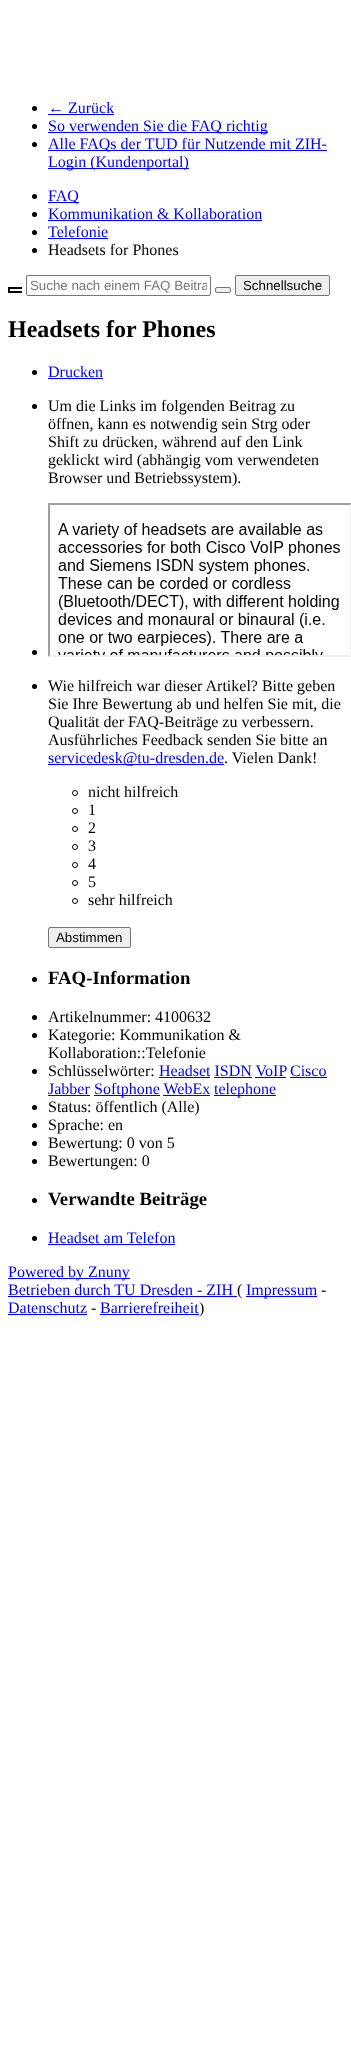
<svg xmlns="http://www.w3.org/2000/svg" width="351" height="2057">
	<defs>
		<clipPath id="clip1"><rect x="30" y="278" width="177" height="15" /></clipPath>
	</defs>
	<rect width="100%" height="100%" fill="#FFFFFF" />
	<circle cx="34.5" cy="108.5" r="2.5" fill="#000000" />
	<text x="48" y="113" font-family="Liberation Serif" font-size="16" fill="#0000EE">← Zurück</text>
	<rect x="48" y="114" width="66" height="1" fill="#0000EE" />
	<circle cx="34.5" cy="126.5" r="2.5" fill="#000000" />
	<rect x="48" y="132" width="220" height="1" fill="#0000EE" />
	<text x="48" y="131" font-family="Liberation Serif" font-size="16" fill="#0000EE">So verwenden Sie die FAQ richtig</text>
	<circle cx="34.5" cy="144.5" r="2.5" fill="#000000" />
	<rect x="48" y="150" width="279" height="1" fill="#0000EE" />
	<text x="48" y="149" font-family="Liberation Serif" font-size="16" fill="#0000EE">Alle FAQs der TUD für Nutzende mit ZIH-</text>
	<rect x="48" y="168" width="141" height="1" fill="#0000EE" />
	<text x="48" y="167" font-family="Liberation Serif" font-size="16" fill="#0000EE">Login (Kundenportal)</text>
	<circle cx="34.5" cy="196.5" r="2.5" fill="#000000" />
	<rect x="48" y="202" width="31" height="1" fill="#0000EE" />
	<text x="48" y="201" font-family="Liberation Serif" font-size="16" fill="#0000EE">FAQ</text>
	<circle cx="34.5" cy="214.5" r="2.5" fill="#000000" />
	<text x="48" y="219" font-family="Liberation Serif" font-size="16" fill="#0000EE">Kommunikation &amp; Kollaboration</text>
	<rect x="48" y="220" width="214" height="1" fill="#0000EE" />
	<circle cx="34.5" cy="232.5" r="2.5" fill="#000000" />
	<text x="48" y="237" font-family="Liberation Serif" font-size="16" fill="#0000EE">Telefonie</text>
	<rect x="48" y="238" width="60" height="1" fill="#0000EE" />
	<circle cx="34.5" cy="250.5" r="2.5" fill="#000000" />
	<text x="48" y="255" font-family="Liberation Serif" font-size="16" fill="#000000">Headsets for Phones</text>
	<rect x="8" y="287" width="14" height="2" fill="#000000" />
	<rect x="8" y="291" width="14" height="2" fill="#000000" />
	<rect x="8" y="287" width="2" height="6" fill="#000000" />
	<rect x="26.5" y="275.5" width="184" height="20" rx="1.5" fill="none" stroke="#767676" />
	<g clip-path="url(#clip1)">
		<text x="30" y="290" font-family="Liberation Sans" font-size="13.3" fill="#757575">Suche nach einem FAQ Beitra</text>
	</g>
	<rect x="215.5" y="287.5" width="15" height="5" rx="1.5" fill="#EFEFEF" stroke="#767676" />
	<rect x="235.5" y="275.5" width="94" height="20" rx="1.5" fill="#EFEFEF" stroke="#767676" />
	<text x="243" y="290" font-family="Liberation Sans" font-size="13.3" fill="#000000">Schnellsuche</text>
	<text x="8" y="337" font-family="Liberation Serif" font-size="24" font-weight="700" fill="#000000">Headsets for Phones</text>
	<circle cx="34.5" cy="372.5" r="2.5" fill="#000000" />
	<text x="48" y="377" font-family="Liberation Serif" font-size="16" fill="#0000EE">Drucken</text>
	<rect x="48" y="378" width="55" height="1" fill="#0000EE" />
	<circle cx="34.5" cy="406.5" r="2.5" fill="#000000" />
	<g font-family="Liberation Serif" font-size="16" fill="#000000">
		<text x="48" y="411">Um die Links im folgenden Beitrag zu</text>
		<text x="48" y="429">öffnen, kann es notwendig sein Strg oder</text>
		<text x="48" y="447">Shift zu drücken, während auf den Link</text>
		<text x="48" y="465">geklickt wird (abhängig vom verwendeten</text>
		<text x="48" y="483">Browser und Betriebssystem).</text>
	</g>
	<circle cx="34.5" cy="652.5" r="2.5" fill="#000000" />
	<path d="M48 503H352L350 505H50Z" fill="#9F9F9F" />
	<path d="M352 503V657L350 655V505Z" fill="#EEEEEE" />
	<path d="M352 657H48L50 655H350Z" fill="#EEEEEE" />
	<path d="M48 657V503L50 505V655Z" fill="#9F9F9F" />
	<image x="58" y="523" width="282" height="132" href="assets/img1.png" />
	<circle cx="34.5" cy="686.5" r="2.5" fill="#000000" />
	<g font-family="Liberation Serif" font-size="16" fill="#000000">
		<text x="48" y="691">Wie hilfreich war dieser Artikel? Bitte geben</text>
		<text x="48" y="709">Sie Ihre Bewertung ab und helfen Sie mit, die</text>
		<text x="48" y="727">Qualität der FAQ-Beiträge zu verbessern.</text>
		<text x="48" y="745">Ausführliches Feedback senden Sie bitte an</text>
	</g>
	<rect x="48" y="764" width="176" height="1" fill="#0000EE" />
	<text x="48" y="763" font-family="Liberation Serif" font-size="16" fill="#0000EE">servicedesk@tu-dresden.de</text>
	<text x="224" y="763" font-family="Liberation Serif" font-size="16" fill="#000000">. Vielen Dank!</text>
	<circle cx="75" cy="793" r="2.5" fill="none" stroke="#000000" />
	<text x="88" y="797" font-family="Liberation Serif" font-size="16" fill="#000000">nicht hilfreich</text>
	<circle cx="75" cy="811" r="2.5" fill="none" stroke="#000000" />
	<text x="88" y="815" font-family="Liberation Serif" font-size="16" fill="#000000">1</text>
	<circle cx="75" cy="829" r="2.5" fill="none" stroke="#000000" />
	<text x="88" y="833" font-family="Liberation Serif" font-size="16" fill="#000000">2</text>
	<circle cx="75" cy="847" r="2.5" fill="none" stroke="#000000" />
	<text x="88" y="851" font-family="Liberation Serif" font-size="16" fill="#000000">3</text>
	<circle cx="75" cy="865" r="2.5" fill="none" stroke="#000000" />
	<text x="88" y="869" font-family="Liberation Serif" font-size="16" fill="#000000">4</text>
	<circle cx="75" cy="883" r="2.5" fill="none" stroke="#000000" />
	<text x="88" y="887" font-family="Liberation Serif" font-size="16" fill="#000000">5</text>
	<circle cx="75" cy="901" r="2.5" fill="none" stroke="#000000" />
	<text x="88" y="905" font-family="Liberation Serif" font-size="16" fill="#000000">sehr hilfreich</text>
	<rect x="48.5" y="927.5" width="82" height="20" rx="1.5" fill="#EFEFEF" stroke="#767676" />
	<text x="56" y="942" font-family="Liberation Sans" font-size="13.3" fill="#000000">Abstimmen</text>
	<circle cx="34.5" cy="979.5" r="2.5" fill="#000000" />
	<text x="48" y="984" font-family="Liberation Serif" font-size="18.75" font-weight="700" fill="#000000">FAQ-Information</text>
	<circle cx="34.5" cy="1017.5" r="2.5" fill="#000000" />
	<text x="48" y="1022" font-family="Liberation Serif" font-size="16" fill="#000000">Artikelnummer: 4100632</text>
	<circle cx="34.5" cy="1035.5" r="2.5" fill="#000000" />
	<g font-family="Liberation Serif" font-size="16" fill="#000000">
		<text x="48" y="1040">Kategorie: Kommunikation &amp;</text>
		<text x="48" y="1058">Kollaboration::Telefonie</text>
	</g>
	<circle cx="34.5" cy="1071.5" r="2.5" fill="#000000" />
	<text x="48" y="1076" font-family="Liberation Serif" font-size="16" fill="#000000">Schlüsselwörter:</text>
	<text x="159" y="1076" font-family="Liberation Serif" font-size="16" fill="#0000EE">Headset ISDN VoIP</text>
	<rect x="159" y="1077" width="51" height="1" fill="#0000EE" />
	<text x="290" y="1076" font-family="Liberation Serif" font-size="16" fill="#0000EE">Cisco</text>
	<rect x="290" y="1077" width="37" height="1" fill="#0000EE" />
	<rect x="214" y="1077" width="38" height="1" fill="#0000EE" />
	<rect x="255" y="1077" width="31" height="1" fill="#0000EE" />
	<text x="48" y="1094" font-family="Liberation Serif" font-size="16" fill="#0000EE">Jabber</text>
	<rect x="48" y="1095" width="42" height="1" fill="#0000EE" />
	<rect x="94" y="1095" width="66" height="1" fill="#0000EE" />
	<text x="94" y="1094" font-family="Liberation Serif" font-size="16" fill="#0000EE">Softphone WebEx</text>
	<rect x="214" y="1095" width="62" height="1" fill="#0000EE" />
	<text x="214" y="1094" font-family="Liberation Serif" font-size="16" fill="#0000EE">telephone</text>
	<rect x="163" y="1095" width="47" height="1" fill="#0000EE" />
	<circle cx="34.5" cy="1107.5" r="2.5" fill="#000000" />
	<text x="48" y="1112" font-family="Liberation Serif" font-size="16" fill="#000000">Status: öffentlich (Alle)</text>
	<circle cx="34.5" cy="1125.5" r="2.5" fill="#000000" />
	<text x="48" y="1130" font-family="Liberation Serif" font-size="16" fill="#000000">Sprache: en</text>
	<circle cx="34.5" cy="1143.5" r="2.5" fill="#000000" />
	<text x="48" y="1148" font-family="Liberation Serif" font-size="16" fill="#000000">Bewertung: 0 von 5</text>
	<circle cx="34.5" cy="1161.5" r="2.5" fill="#000000" />
	<text x="48" y="1166" font-family="Liberation Serif" font-size="16" fill="#000000">Bewertungen: 0</text>
	<circle cx="34.5" cy="1200.5" r="2.5" fill="#000000" />
	<text x="48" y="1205" font-family="Liberation Serif" font-size="18.75" font-weight="700" fill="#000000">Verwandte Beiträge</text>
	<circle cx="34.5" cy="1238.5" r="2.5" fill="#000000" />
	<text x="48" y="1243" font-family="Liberation Serif" font-size="16" fill="#0000EE">Headset am Telefon</text>
	<rect x="48" y="1244" width="127" height="1" fill="#0000EE" />
	<rect x="8" y="1278" width="122" height="1" fill="#0000EE" />
	<g font-family="Liberation Serif" font-size="16" fill="#0000EE">
		<text x="8" y="1277">Powered by Znuny</text>
		<text x="8" y="1295">Betrieben durch TU Dresden - ZIH</text>
	</g>
	<rect x="8" y="1296" width="229" height="1" fill="#0000EE" />
	<text x="237" y="1295" font-family="Liberation Serif" font-size="16" fill="#000000">(</text>
	<rect x="246" y="1296" width="71" height="1" fill="#0000EE" />
	<text x="246" y="1295" font-family="Liberation Serif" font-size="16" fill="#0000EE">Impressum</text>
	<text x="321" y="1295" font-family="Liberation Serif" font-size="16" fill="#000000">-</text>
	<text x="8" y="1313" font-family="Liberation Serif" font-size="16" fill="#0000EE">Datenschutz</text>
	<rect x="8" y="1314" width="79" height="1" fill="#0000EE" />
	<text x="91" y="1313" font-family="Liberation Serif" font-size="16" fill="#000000">-</text>
	<text x="100" y="1313" font-family="Liberation Serif" font-size="16" fill="#0000EE">Barrierefreiheit</text>
	<rect x="100" y="1314" width="99" height="1" fill="#0000EE" />
	<text x="199" y="1313" font-family="Liberation Serif" font-size="16" fill="#000000">)</text>
</svg>
